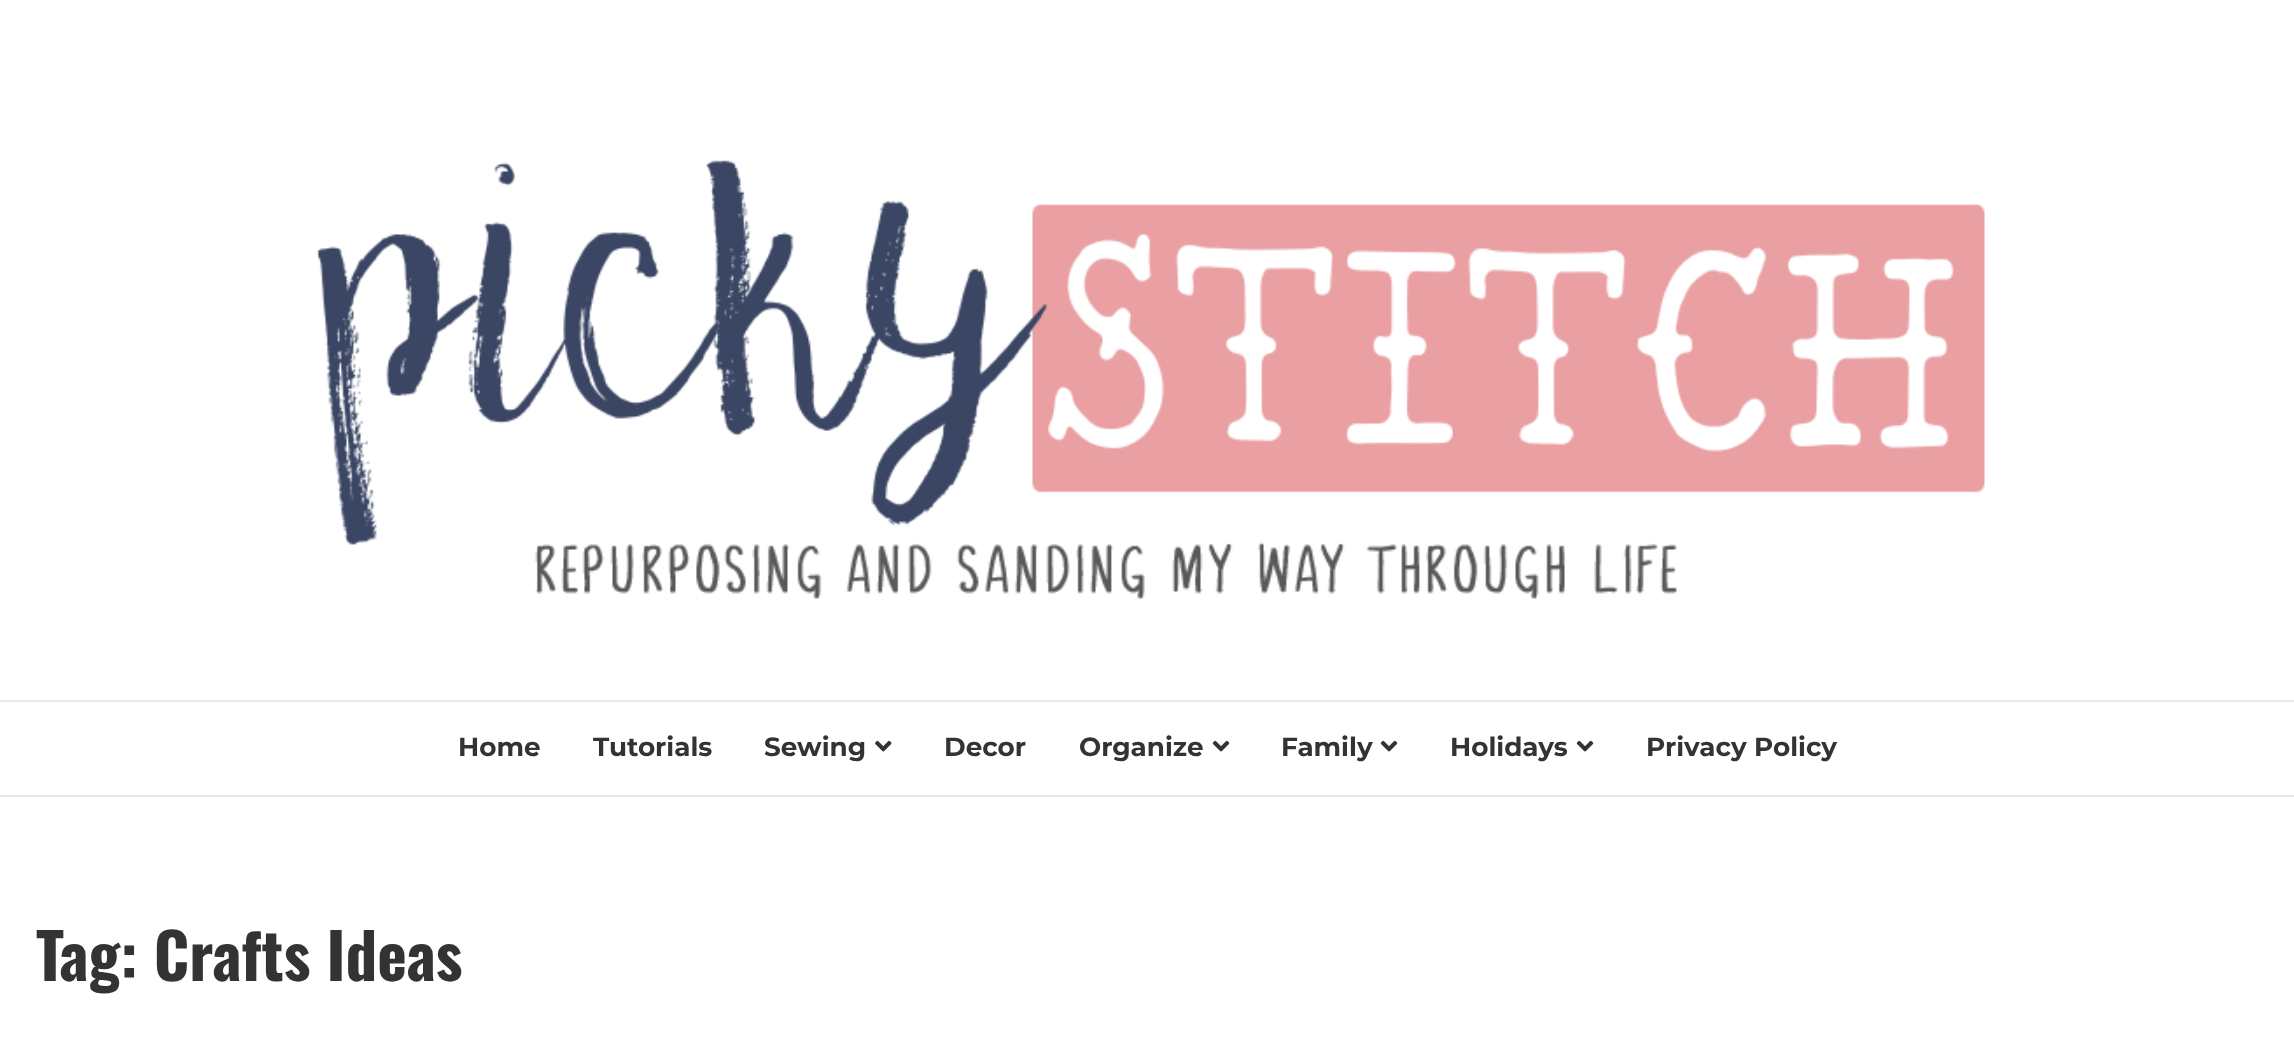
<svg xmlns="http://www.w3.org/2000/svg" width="2294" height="1059">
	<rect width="100%" height="100%" fill="#FFFFFF" />
	<image x="316" y="160" width="1669" height="439" href="assets/img1.png" />
	<rect x="0" y="700" width="2294" height="2" fill="#EEE6E2" />
	<rect x="0" y="795" width="2294" height="2" fill="#EEE6E2" />
	<g font-family="Montserrat" font-size="26.25" font-weight="700" fill="#333333">
		<text x="458" y="756">Home</text>
		<text x="593" y="756">Tutorials</text>
		<text x="764" y="756">Sewing</text>
	</g>
	<image x="875" y="740" width="17" height="12" href="assets/img2.png" />
	<g font-family="Montserrat" font-size="26.25" font-weight="700" fill="#333333">
		<text x="944" y="756">Decor</text>
		<text x="1079" y="756">Organize</text>
	</g>
	<image x="1212" y="740" width="18" height="12" href="assets/img3.png" />
	<text x="1281" y="756" font-family="Montserrat" font-size="26.25" font-weight="700" fill="#333333">Family</text>
	<image x="1380" y="740" width="18" height="12" href="assets/img3.png" />
	<text x="1450" y="756" font-family="Montserrat" font-size="26.25" font-weight="700" fill="#333333">Holidays</text>
	<image x="1576" y="740" width="18" height="12" href="assets/img3.png" />
	<text x="1646" y="756" font-family="Montserrat" font-size="26.25" font-weight="700" fill="#333333">Privacy Policy</text>
	<text x="36" y="981" font-family="Oswald" font-size="63" font-weight="700" fill="#333333">Tag: Crafts Ideas</text>
</svg>
